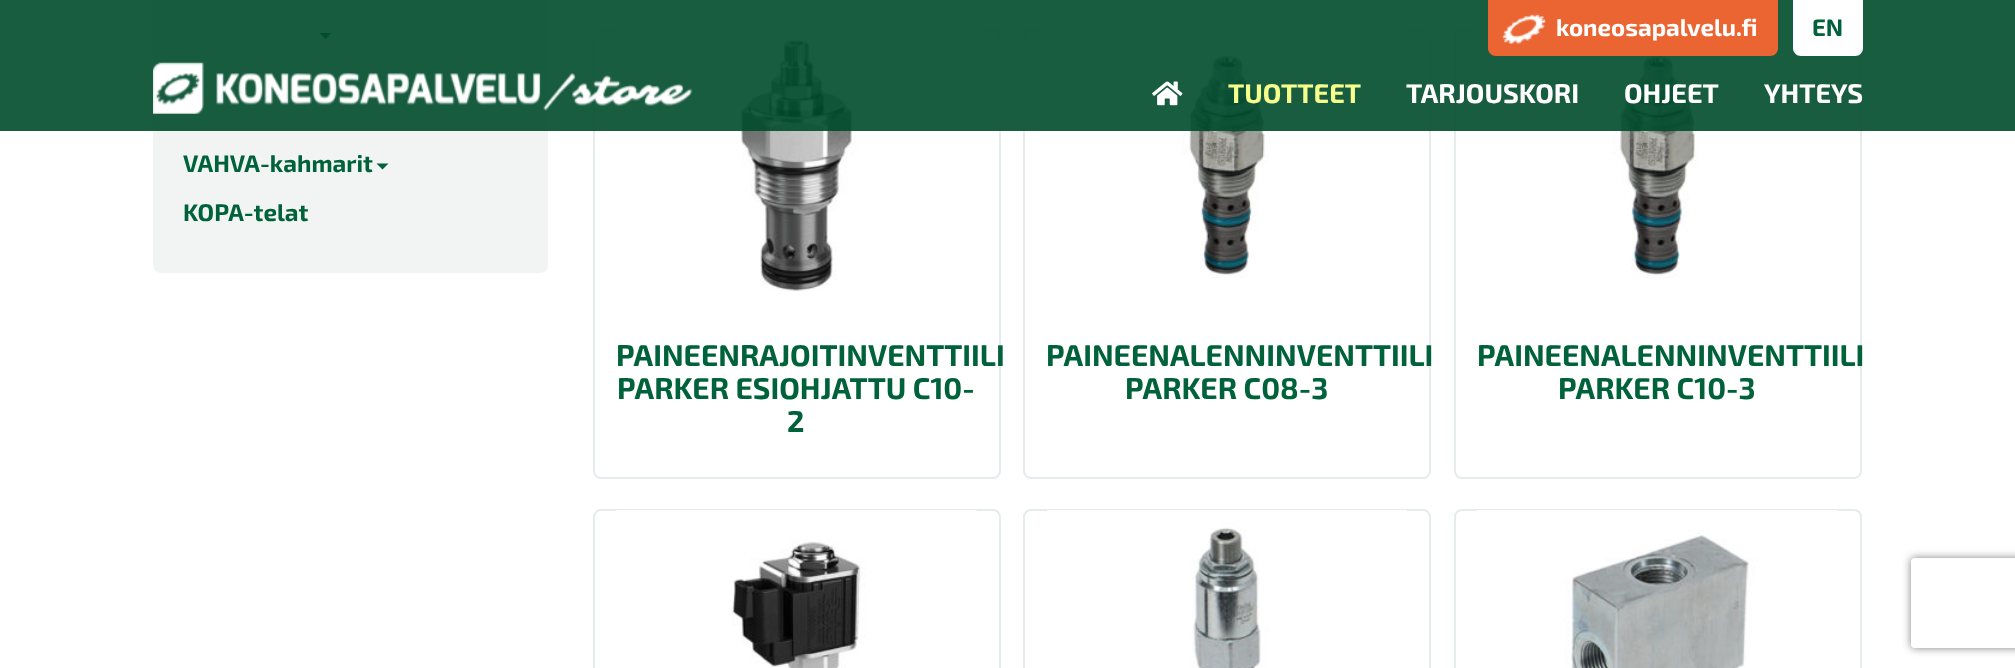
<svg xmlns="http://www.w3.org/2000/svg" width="2015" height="668">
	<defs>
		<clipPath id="clip1"><path d="M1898 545H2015V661H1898ZM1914 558H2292C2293.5 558 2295 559.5 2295 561V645C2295 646.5 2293.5 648 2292 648H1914C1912.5 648 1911 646.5 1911 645V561C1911 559.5 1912.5 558 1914 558Z" clip-rule="evenodd" /></clipPath>
	</defs>
	<rect width="100%" height="100%" fill="#FFFFFF" />
	<rect x="153" y="-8" width="395" height="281" rx="8" fill="#F2F3F3" />
	<path d="M319.5 33H331.5L325.5 39Z" fill="#00623A" />
	<rect x="594" y="30" width="406" height="448" rx="7" fill="none" stroke="#E6EBEE" stroke-width="2" />
	<image x="616" y="30" width="361" height="262" href="assets/img4.png" />
	<rect x="1024" y="30" width="406" height="448" rx="7" fill="none" stroke="#E6EBEE" stroke-width="2" />
	<image x="1047" y="30" width="360" height="248" href="assets/img5.png" />
	<rect x="1455" y="30" width="406" height="448" rx="7" fill="none" stroke="#E6EBEE" stroke-width="2" />
	<image x="1477" y="30" width="361" height="249" href="assets/img6.png" />
	<rect x="0" y="0" width="2015" height="131" fill="#004B2C" fill-opacity="0.9" />
	<path d="M1488 0H1778V48C1778 52.5 1774.5 56 1770 56H1496C1491.5 56 1488 52.5 1488 48Z" fill="#EA6532" />
	<image x="1502" y="14" width="44" height="30" href="assets/img1.png" />
	<text x="1556" y="36" font-family="'Exo 2'" font-size="24" font-weight="700" fill="#FFFFFF">koneosapalvelu.fi</text>
	<path d="M1793 0H1863V48C1863 52.5 1859.5 56 1855 56H1801C1796.5 56 1793 52.5 1793 48Z" fill="#FFFFFF" />
	<text x="1812" y="36" font-family="'Exo 2'" font-size="24" font-weight="700" fill="#00623A">EN</text>
	<image x="153" y="62" width="539" height="52" href="assets/img2.png" />
	<image x="1152" y="81" width="31" height="25" href="assets/img3.png" />
	<text x="1228" y="103" font-family="'Exo 2'" font-size="27" font-weight="700" fill="#F7FF8C">TUOTTEET</text>
	<g font-family="'Exo 2'" font-size="27" font-weight="700" fill="#FFFFFF">
		<text x="1406" y="103">TARJOUSKORI</text>
		<text x="1624" y="103">OHJEET</text>
		<text x="1764" y="103">YHTEYS</text>
	</g>
	<text x="183" y="172" font-family="'Exo 2'" font-size="24" font-weight="700" fill="#00623A">VAHVA-kahmarit</text>
	<path d="M376.5 163.5H388.5L382.5 169.5Z" fill="#00623A" />
	<text x="183" y="221" font-family="'Exo 2'" font-size="24" font-weight="700" fill="#00623A">KOPA-telat</text>
	<g font-family="'Exo 2'" font-size="30" font-weight="700" fill="#00623A">
		<text x="616" y="366">PAINEENRAJOITINVENTTIILI</text>
		<text x="617" y="399">PARKER ESIOHJATTU C10-</text>
		<text x="787" y="432">2</text>
		<text x="1046" y="366">PAINEENALENNINVENTTIILI</text>
		<text x="1125" y="399">PARKER C08-3</text>
		<text x="1477" y="366">PAINEENALENNINVENTTIILI</text>
		<text x="1558" y="399">PARKER C10-3</text>
	</g>
	<rect x="594" y="510" width="406" height="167" rx="7" fill="none" stroke="#E6EBEE" stroke-width="2" />
	<image x="616" y="510" width="361" height="158" href="assets/img7.png" />
	<rect x="1024" y="510" width="406" height="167" rx="7" fill="none" stroke="#E6EBEE" stroke-width="2" />
	<image x="1047" y="510" width="360" height="158" href="assets/img8.png" />
	<rect x="1455" y="510" width="406" height="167" rx="7" fill="none" stroke="#E6EBEE" stroke-width="2" />
	<image x="1477" y="510" width="361" height="158" href="assets/img9.png" />
	<g clip-path="url(#clip1)">
		<rect x="1911" y="558" width="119" height="90" rx="3" fill="#808080" filter="blur(4px)" />
	</g>
</svg>
